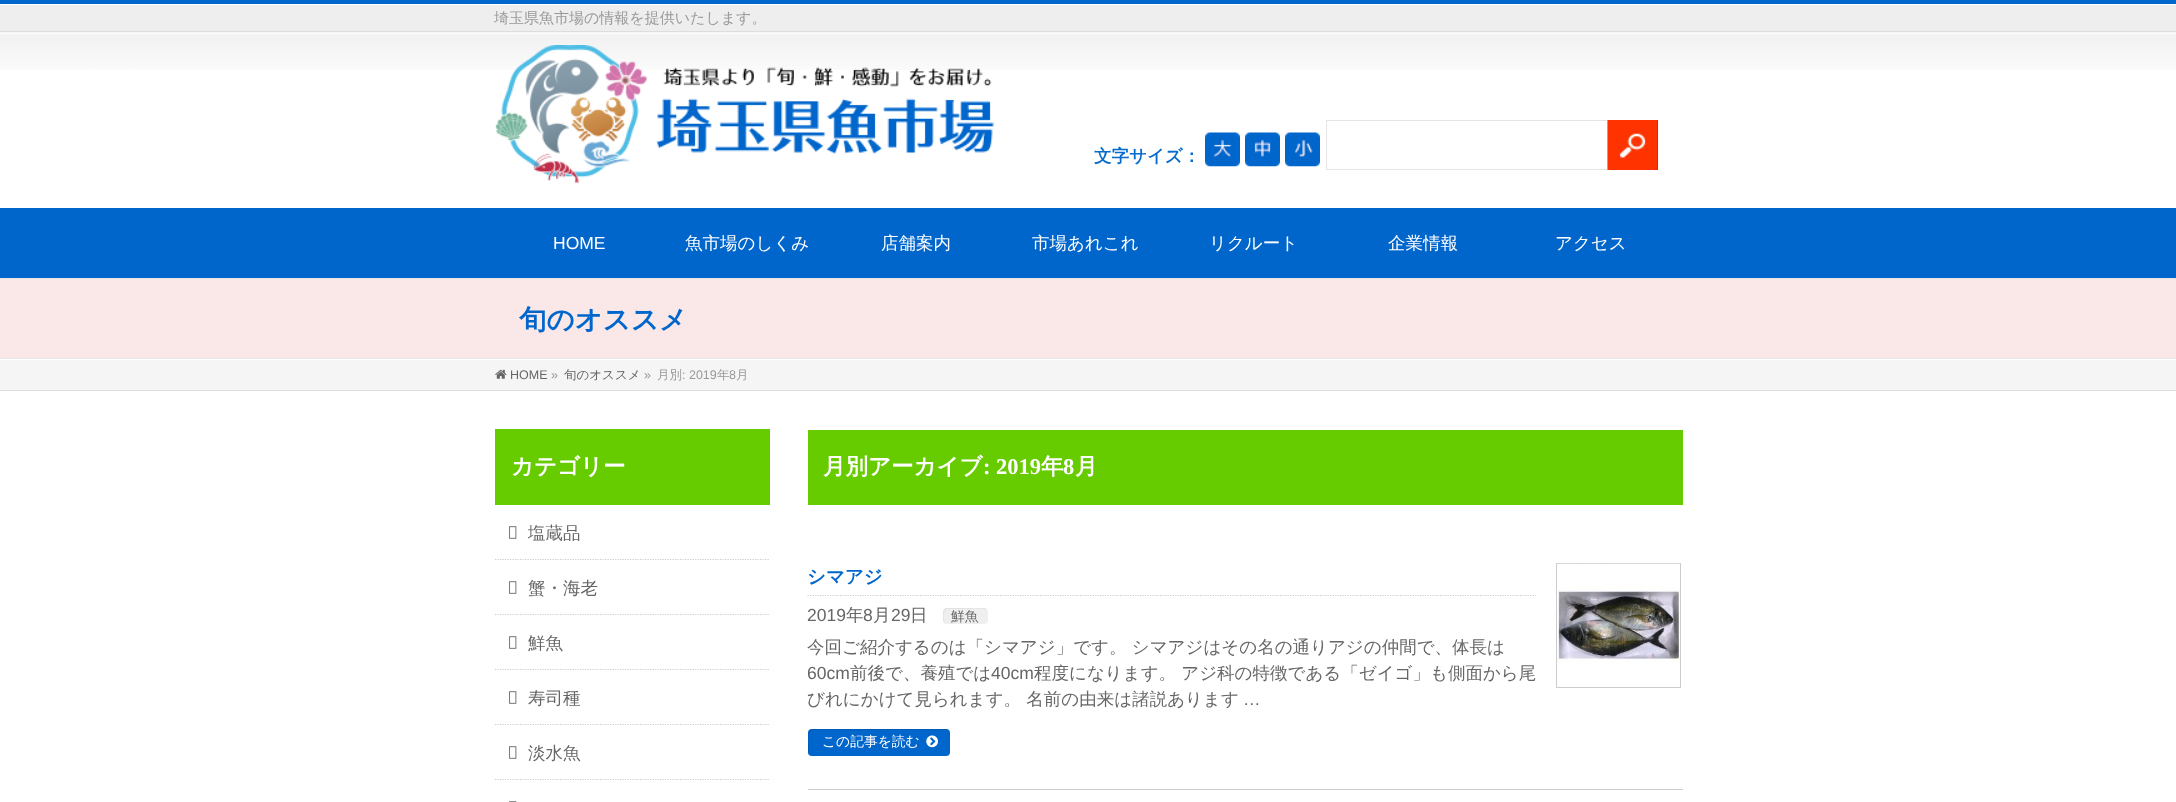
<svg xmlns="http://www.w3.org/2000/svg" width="2176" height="802">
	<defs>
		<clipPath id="clip1"><rect x="808" y="561" width="728" height="203" /></clipPath>
	</defs>
	<rect width="100%" height="100%" fill="#FFFFFF" />
	<rect x="0" y="5" width="2176" height="28" fill="#EEEEEE" />
	<rect x="0" y="0" width="2176" height="4" fill="#0066CC" />
	<rect x="0" y="31" width="2176" height="1" fill="#DDDDDD" />
	<text x="494" y="23" font-family="WenQuanYi Zen Hei" font-size="15" font-weight="500" fill="#999999">埼玉県魚市場の情報を提供いたします。</text>
	<image x="0" y="32" width="2176" height="38" href="assets/img1.png" />
	<image x="495" y="45" width="499" height="139" href="assets/img2.png" />
	<text x="1094" y="162" font-family="WenQuanYi Zen Hei" font-size="17.5" font-weight="700" fill="#066CCC">文字サイズ：</text>
	<image x="1205" y="132" width="35" height="35" href="assets/img3.png" />
	<image x="1245" y="132" width="35" height="35" href="assets/img4.png" />
	<image x="1285" y="132" width="35" height="35" href="assets/img5.png" />
	<rect x="1326.5" y="120.5" width="281" height="49" fill="none" stroke="#E5E5E5" />
	<rect x="1657" y="120" width="1" height="50" fill="#0066CC" />
	<image x="1607" y="120" width="51" height="50" href="assets/img6.png" />
	<rect x="0" y="208" width="2176" height="70" fill="#0066CC" />
	<text x="553" y="249" font-family="Liberation Sans" font-size="17.5" fill="#FFFFFF">HOME</text>
	<g font-family="WenQuanYi Zen Hei" font-size="17.5" font-weight="500" fill="#FFFFFF">
		<text x="685" y="249">魚市場のしくみ</text>
		<text x="881" y="249">店舗案内</text>
		<text x="1032" y="249">市場あれこれ</text>
		<text x="1209" y="249">リクルート</text>
		<text x="1388" y="249">企業情報</text>
		<text x="1555" y="249">アクセス</text>
	</g>
	<rect x="0" y="279" width="2176" height="79" fill="#FAE8E8" />
	<rect x="0" y="278" width="2176" height="1" fill="#E5E5E5" />
	<rect x="0" y="358" width="2176" height="1" fill="#E5E5E5" />
	<text x="519" y="329" font-family="WenQuanYi Zen Hei" font-size="27.5" font-weight="700" fill="#0066CC">旬のオススメ</text>
	<rect x="0" y="360" width="2176" height="30" fill="#F5F5F5" />
	<rect x="0" y="390" width="2176" height="1" fill="#DDDDDD" />
	<image x="495" y="369" width="12" height="10" href="assets/img7.png" />
	<text x="510" y="379" font-family="Liberation Sans" font-size="12.5" fill="#666666">HOME</text>
	<text x="551" y="379" font-family="Liberation Sans" font-size="12.5" fill="#999999">»</text>
	<text x="564" y="379" font-family="WenQuanYi Zen Hei" font-size="12.5" font-weight="500" fill="#666666">旬のオススメ</text>
	<text x="644" y="379" font-family="Liberation Sans" font-size="12.5" fill="#999999">»</text>
	<text x="657" y="379" font-family="WenQuanYi Zen Hei" font-size="12.5" font-weight="500" fill="#999999">月別</text>
	<text x="682" y="379" font-family="Liberation Sans" font-size="12.5" fill="#999999">: 2019</text>
	<text x="717" y="379" font-family="WenQuanYi Zen Hei" font-size="12.5" font-weight="500" fill="#999999">年</text>
	<text x="729" y="379" font-family="Liberation Sans" font-size="12.5" fill="#999999">8</text>
	<text x="736" y="379" font-family="WenQuanYi Zen Hei" font-size="12.5" font-weight="500" fill="#999999">月</text>
	<rect x="495" y="429" width="275" height="76" fill="#66CC00" />
	<text x="511" y="474" font-family="WenQuanYi Zen Hei" font-size="22.5" font-weight="700" fill="#FFFFFF">カテゴリー</text>
	<path d="M495 559.5H770" fill="none" stroke="#CCCCCC" stroke-width="1.2" stroke-dasharray="1.25 1.25" />
	<image x="509" y="526" width="8" height="13" href="assets/img8.png" />
	<text x="528" y="539" font-family="WenQuanYi Zen Hei" font-size="17.5" font-weight="500" fill="#666666">塩蔵品</text>
	<path d="M495 614.5H770" fill="none" stroke="#CCCCCC" stroke-width="1.2" stroke-dasharray="1.25 1.25" />
	<image x="509" y="581" width="8" height="13" href="assets/img8.png" />
	<text x="528" y="594" font-family="WenQuanYi Zen Hei" font-size="17.5" font-weight="500" fill="#666666">蟹・海老</text>
	<path d="M495 669.5H770" fill="none" stroke="#CCCCCC" stroke-width="1.2" stroke-dasharray="1.25 1.25" />
	<image x="509" y="636" width="8" height="13" href="assets/img8.png" />
	<text x="528" y="649" font-family="WenQuanYi Zen Hei" font-size="17.5" font-weight="500" fill="#666666">鮮魚</text>
	<path d="M495 724.5H770" fill="none" stroke="#CCCCCC" stroke-width="1.2" stroke-dasharray="1.25 1.25" />
	<image x="509" y="691" width="8" height="13" href="assets/img8.png" />
	<text x="528" y="704" font-family="WenQuanYi Zen Hei" font-size="17.5" font-weight="500" fill="#666666">寿司種</text>
	<path d="M495 779.5H770" fill="none" stroke="#CCCCCC" stroke-width="1.2" stroke-dasharray="1.25 1.25" />
	<image x="509" y="746" width="8" height="13" href="assets/img8.png" />
	<text x="528" y="759" font-family="WenQuanYi Zen Hei" font-size="17.5" font-weight="500" fill="#666666">淡水魚</text>
	<image x="509" y="801" width="8" height="1" href="assets/img9.png" />
	<rect x="808" y="430" width="875" height="75" fill="#66CC00" />
	<text x="823" y="474" font-family="WenQuanYi Zen Hei" font-size="22.5" font-weight="700" fill="#FFFFFF">月別アーカイブ</text>
	<text x="983" y="474" font-family="Liberation Serif" font-size="22.5" font-weight="700" fill="#FFFFFF">: 2019</text>
	<text x="1041" y="474" font-family="WenQuanYi Zen Hei" font-size="22.5" font-weight="700" fill="#FFFFFF">年</text>
	<text x="1063" y="474" font-family="Liberation Serif" font-size="22.5" font-weight="700" fill="#FFFFFF">8</text>
	<text x="1075" y="474" font-family="WenQuanYi Zen Hei" font-size="22.5" font-weight="700" fill="#FFFFFF">月</text>
	<rect x="808" y="789" width="875" height="1" fill="#CCCCCC" />
	<path d="M807.5 595.5H1536" fill="none" stroke="#CCCCCC" stroke-width="1.2" stroke-dasharray="1.25 1.25" />
	<text x="807" y="583" font-family="WenQuanYi Zen Hei" font-size="18.5" font-weight="700" fill="#0066CC">シマアジ</text>
	<text x="807" y="621" font-family="Liberation Sans" font-size="17.5" fill="#666666">2019</text>
	<text x="846" y="621" font-family="WenQuanYi Zen Hei" font-size="17.5" font-weight="500" fill="#666666">年</text>
	<text x="863" y="621" font-family="Liberation Sans" font-size="17.5" fill="#666666">8</text>
	<text x="873" y="621" font-family="WenQuanYi Zen Hei" font-size="17.5" font-weight="500" fill="#666666">月</text>
	<text x="891" y="621" font-family="Liberation Sans" font-size="17.5" fill="#666666">29</text>
	<text x="910" y="621" font-family="WenQuanYi Zen Hei" font-size="17.5" font-weight="500" fill="#666666">日</text>
	<rect x="943" y="608" width="45" height="16" rx="4" fill="#EFEFEF" />
	<path d="M948 609H969C969 609 985 608 987 610C987 609 985 608 984 608H947C945 608 943 610 943 612V620C943 622 944 623 945 624C943 620 943 609 948 609Z" fill="#000000" fill-opacity="0.05" />
	<text x="951" y="621" font-family="WenQuanYi Zen Hei" font-size="13.75" font-weight="500" fill="#666666">鮮魚</text>
	<text x="807" y="653" font-family="WenQuanYi Zen Hei" font-size="17.5" font-weight="500" fill="#666666">今回ご紹介するのは「シマアジ」です。 シマアジはその名の通りアジの仲間で、体長は</text>
	<g clip-path="url(#clip1)">
		<text x="807" y="679" font-family="Liberation Sans" font-size="17.5" fill="#666666">60cm</text>
	</g>
	<text x="850" y="679" font-family="WenQuanYi Zen Hei" font-size="17.5" font-weight="500" fill="#666666">前後で、養殖では</text>
	<text x="991" y="679" font-family="Liberation Sans" font-size="17.5" fill="#666666">40cm</text>
	<g font-family="WenQuanYi Zen Hei" font-size="17.5" font-weight="500" fill="#666666">
		<text x="1034" y="679">程度になります。 アジ科の特徴である「ゼイゴ」も側面から尾</text>
		<text x="807" y="705">びれにかけて見られます。 名前の由来は諸説あります</text>
	</g>
	<text x="1243" y="705" font-family="Liberation Sans" font-size="17.5" fill="#666666">…</text>
	<rect x="808" y="729" width="142" height="27" rx="4" fill="#0066CC" />
	<path d="M812 730H949C948 729 947 729 946 729H812C810 729 808 731 808 733V752C808 753 808 754 809 755V744C809 742 807 730 812 730Z" fill="#000000" fill-opacity="0.1" />
	<text x="822" y="746" font-family="WenQuanYi Zen Hei" font-size="13.75" font-weight="500" fill="#FFFFFF">この記事を読む</text>
	<image x="926" y="735" width="12" height="13" href="assets/img10.png" />
	<rect x="1556.5" y="563.5" width="124" height="124" fill="none" stroke="#CCCCCC" />
	<image x="1557" y="563" width="123" height="99" href="assets/img11.png" />
</svg>
